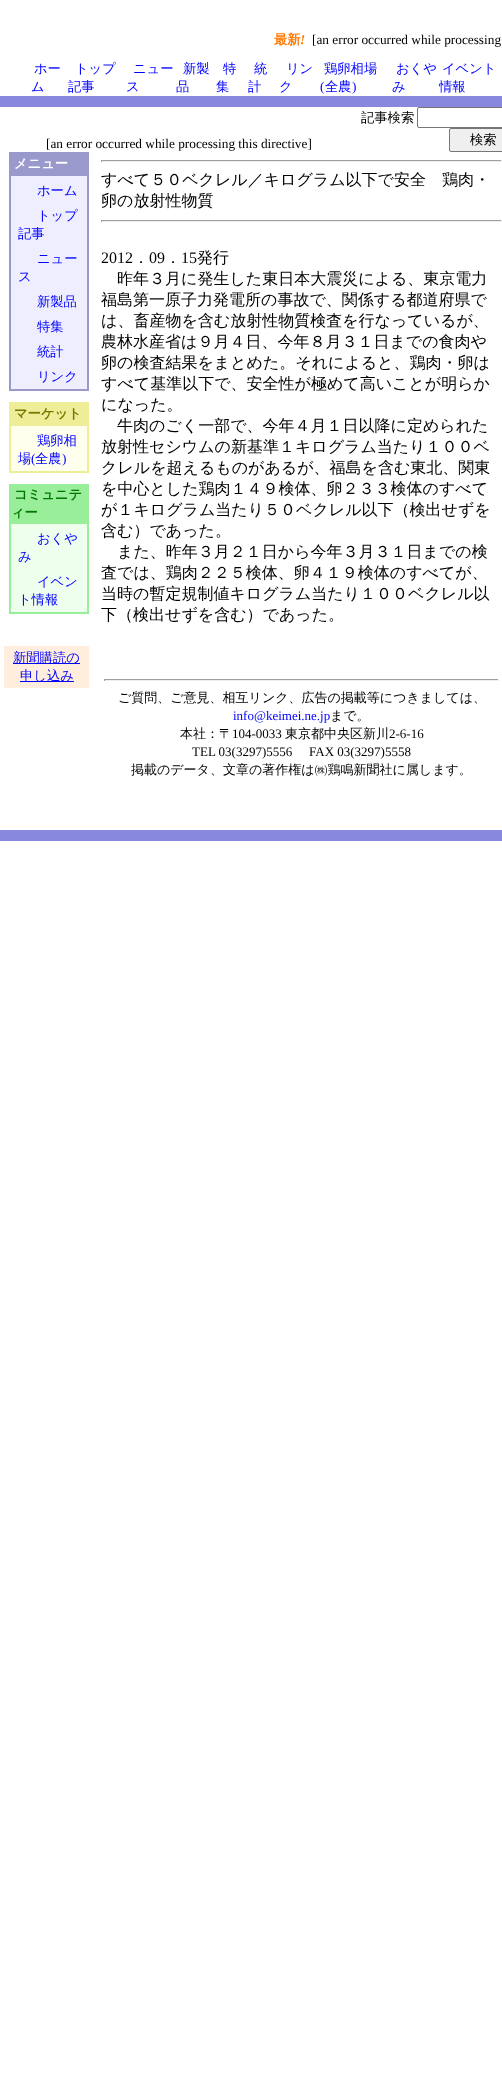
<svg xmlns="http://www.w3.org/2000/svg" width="502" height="2077">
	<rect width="100%" height="100%" fill="#FFFFFF" />
	<text x="274" y="44" font-family="WenQuanYi Zen Hei" font-size="13.3" font-weight="700" fill="#FF7700">最新</text>
	<text x="300" y="44" font-family="Liberation Serif" font-size="13.3" font-weight="700" font-style="italic" fill="#FF7700">!</text>
	<text x="312" y="44" font-family="Liberation Serif" font-size="13.3" fill="#000000">[an error occurred while processing</text>
	<g font-family="WenQuanYi Zen Hei" font-size="13.3" font-weight="500" fill="#0000FF">
		<text x="34" y="73">ホー</text>
		<text x="31" y="91">ム</text>
		<text x="75" y="73">トップ</text>
		<text x="68" y="91">記事</text>
		<text x="133" y="73">ニュー</text>
		<text x="126" y="91">ス</text>
		<text x="183" y="73">新製</text>
		<text x="176" y="91">品</text>
		<text x="223" y="73">特</text>
		<text x="216" y="91">集</text>
		<text x="254" y="73">統</text>
		<text x="248" y="91">計</text>
		<text x="286" y="73">リン</text>
		<text x="279" y="91">ク</text>
		<text x="324" y="73">鶏卵相場</text>
	</g>
	<text x="320" y="91" font-family="Liberation Serif" font-size="13.3" fill="#0000FF">(</text>
	<text x="325" y="91" font-family="WenQuanYi Zen Hei" font-size="13.3" font-weight="500" fill="#0000FF">全農</text>
	<text x="352" y="91" font-family="Liberation Serif" font-size="13.3" fill="#0000FF">)</text>
	<g font-family="WenQuanYi Zen Hei" font-size="13.3" font-weight="500" fill="#0000FF">
		<text x="396" y="73">おくや</text>
		<text x="392" y="91">み</text>
		<text x="442" y="73">イベント</text>
		<text x="439" y="91">情報</text>
	</g>
	<rect x="0" y="96" width="502" height="11" fill="#8888DD" />
	<text x="46" y="148" font-family="Liberation Serif" font-size="13.3" fill="#000000">[an error occurred while processing this directive]</text>
	<text x="361" y="122" font-family="WenQuanYi Zen Hei" font-size="13.3" font-weight="500" fill="#000000">記事検索</text>
	<rect x="417.5" y="107.5" width="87" height="20" rx="1.5" fill="none" stroke="#767676" />
	<rect x="449.5" y="128.5" width="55" height="23" rx="1.5" fill="#EFEFEF" stroke="#767676" />
	<text x="470" y="144" font-family="WenQuanYi Zen Hei" font-size="13.3" font-weight="500" fill="#000000">検索</text>
	<rect x="9" y="152" width="80" height="239" fill="#9999CC" />
	<text x="14" y="168" font-family="WenQuanYi Zen Hei" font-size="13.3" font-weight="700" fill="#FFFFFF">メニュー</text>
	<rect x="11" y="176" width="76" height="213" fill="#EEEEFF" />
	<g font-family="WenQuanYi Zen Hei" font-size="13.3" font-weight="500" fill="#0000FF">
		<text x="37" y="195">ホーム</text>
		<text x="37" y="220">トップ</text>
		<text x="18" y="238">記事</text>
		<text x="37" y="263">ニュー</text>
		<text x="18" y="281">ス</text>
		<text x="37" y="306">新製品</text>
		<text x="37" y="331">特集</text>
		<text x="37" y="356">統計</text>
		<text x="37" y="381">リンク</text>
	</g>
	<rect x="9" y="402" width="80" height="71" fill="#EEEE99" />
	<text x="14" y="418" font-family="WenQuanYi Zen Hei" font-size="13.3" font-weight="700" fill="#777700">マーケット</text>
	<rect x="11" y="426" width="76" height="45" fill="#FFFFEE" />
	<g font-family="WenQuanYi Zen Hei" font-size="13.3" font-weight="500" fill="#0000FF">
		<text x="37" y="445">鶏卵相</text>
		<text x="18" y="463">場</text>
	</g>
	<text x="31" y="463" font-family="Liberation Serif" font-size="13.3" fill="#0000FF">(</text>
	<text x="35" y="463" font-family="WenQuanYi Zen Hei" font-size="13.3" font-weight="500" fill="#0000FF">全農</text>
	<text x="62" y="463" font-family="Liberation Serif" font-size="13.3" fill="#0000FF">)</text>
	<rect x="9" y="484" width="80" height="130" fill="#99EE99" />
	<g font-family="WenQuanYi Zen Hei" font-size="13.3" font-weight="700" fill="#007700">
		<text x="14" y="499">コミュニテ</text>
		<text x="11" y="517">ィー</text>
	</g>
	<rect x="11" y="524" width="76" height="88" fill="#EEFFEE" />
	<g font-family="WenQuanYi Zen Hei" font-size="13.3" font-weight="500" fill="#0000FF">
		<text x="37" y="543">おくや</text>
		<text x="18" y="561">み</text>
		<text x="37" y="586">イベン</text>
		<text x="18" y="604">ト情報</text>
	</g>
	<rect x="4" y="646" width="85" height="42" fill="#FFEEDD" />
	<rect x="13" y="663" width="67" height="1" fill="#0000FF" />
	<text x="13" y="662" font-family="WenQuanYi Zen Hei" font-size="13.3" font-weight="500" fill="#0000FF">新聞購読の</text>
	<rect x="20" y="681" width="54" height="1" fill="#0000FF" />
	<text x="20" y="680" font-family="WenQuanYi Zen Hei" font-size="13.3" font-weight="500" fill="#0000FF">申し込み</text>
	<rect x="101" y="160" width="401" height="1" fill="#9F9F9F" />
	<rect x="501" y="160" width="1" height="2" fill="#EEEEEE" />
	<rect x="101" y="161" width="401" height="1" fill="#EEEEEE" />
	<rect x="101" y="160" width="1" height="2" fill="#9F9F9F" />
	<g font-family="WenQuanYi Zen Hei" font-size="16" font-weight="500" fill="#000000">
		<text x="101" y="185">すべて５０ベクレル／キログラム以下で安全　鶏肉・</text>
		<text x="101" y="206">卵の放射性物質</text>
	</g>
	<rect x="101" y="220" width="401" height="1" fill="#9F9F9F" />
	<rect x="501" y="220" width="1" height="2" fill="#EEEEEE" />
	<rect x="101" y="221" width="401" height="1" fill="#EEEEEE" />
	<rect x="101" y="220" width="1" height="2" fill="#9F9F9F" />
	<text x="101" y="263" font-family="Liberation Serif" font-size="16" fill="#000000">2012</text>
	<text x="133" y="263" font-family="WenQuanYi Zen Hei" font-size="16" font-weight="500" fill="#000000">．</text>
	<text x="149" y="263" font-family="Liberation Serif" font-size="16" fill="#000000">09</text>
	<text x="165" y="263" font-family="WenQuanYi Zen Hei" font-size="16" font-weight="500" fill="#000000">．</text>
	<text x="181" y="263" font-family="Liberation Serif" font-size="16" fill="#000000">15</text>
	<g font-family="WenQuanYi Zen Hei" font-size="16" font-weight="500" fill="#000000">
		<text x="197" y="263">発行</text>
		<text x="117" y="284">昨年３月に発生した東日本大震災による、東京電力</text>
		<text x="101" y="305">福島第一原子力発電所の事故で、関係する都道府県で</text>
		<text x="101" y="326">は、畜産物を含む放射性物質検査を行なっているが、</text>
		<text x="101" y="347">農林水産省は９月４日、今年８月３１日までの食肉や</text>
		<text x="101" y="368">卵の検査結果をまとめた。それによると、鶏肉・卵は</text>
		<text x="101" y="389">すべて基準以下で、安全性が極めて高いことが明らか</text>
		<text x="101" y="410">になった。</text>
		<text x="117" y="431">牛肉のごく一部で、今年４月１日以降に定められた</text>
		<text x="101" y="452">放射性セシウムの新基準１キログラム当たり１００ベ</text>
		<text x="101" y="473">クレルを超えるものがあるが、福島を含む東北、関東</text>
		<text x="101" y="494">を中心とした鶏肉１４９検体、卵２３３検体のすべて</text>
		<text x="101" y="515">が１キログラム当たり５０ベクレル以下（検出せずを</text>
		<text x="101" y="536">含む）であった。</text>
		<text x="117" y="557">また、昨年３月２１日から今年３月３１日までの検</text>
		<text x="101" y="578">査では、鶏肉２２５検体、卵４１９検体のすべてが、</text>
		<text x="101" y="599">当時の暫定規制値キログラム当たり１００ベクレル以</text>
		<text x="101" y="620">下（検出せずを含む）であった。</text>
	</g>
	<rect x="104" y="679" width="395" height="1" fill="#9F9F9F" />
	<rect x="498" y="679" width="1" height="2" fill="#EEEEEE" />
	<rect x="104" y="680" width="395" height="1" fill="#EEEEEE" />
	<rect x="104" y="679" width="1" height="2" fill="#9F9F9F" />
	<text x="118" y="702" font-family="WenQuanYi Zen Hei" font-size="13" font-weight="500" fill="#000000">ご質問、ご意見、相互リンク、広告の掲載等につきましては、</text>
	<text x="233" y="720" font-family="Liberation Serif" font-size="13" fill="#0000FF">info@keimei.ne.jp</text>
	<g font-family="WenQuanYi Zen Hei" font-size="13" font-weight="500" fill="#000000">
		<text x="330" y="720">まで。</text>
		<text x="180" y="738">本社：〒</text>
	</g>
	<text x="232" y="738" font-family="Liberation Serif" font-size="13" fill="#000000">104-0033</text>
	<text x="285" y="738" font-family="WenQuanYi Zen Hei" font-size="13" font-weight="500" fill="#000000">東京都中央区新川</text>
	<g font-family="Liberation Serif" font-size="13" fill="#000000">
		<text x="389" y="738">2-6-16</text>
		<text x="192" y="756">TEL 03(3297)5556</text>
		<text x="309" y="756">FAX 03(3297)5558</text>
	</g>
	<text x="131" y="774" font-family="WenQuanYi Zen Hei" font-size="13" font-weight="500" fill="#000000">掲載のデータ、文章の著作権は㈱鶏鳴新聞社に属します。</text>
	<rect x="0" y="830" width="502" height="11" fill="#8888DD" />
</svg>
